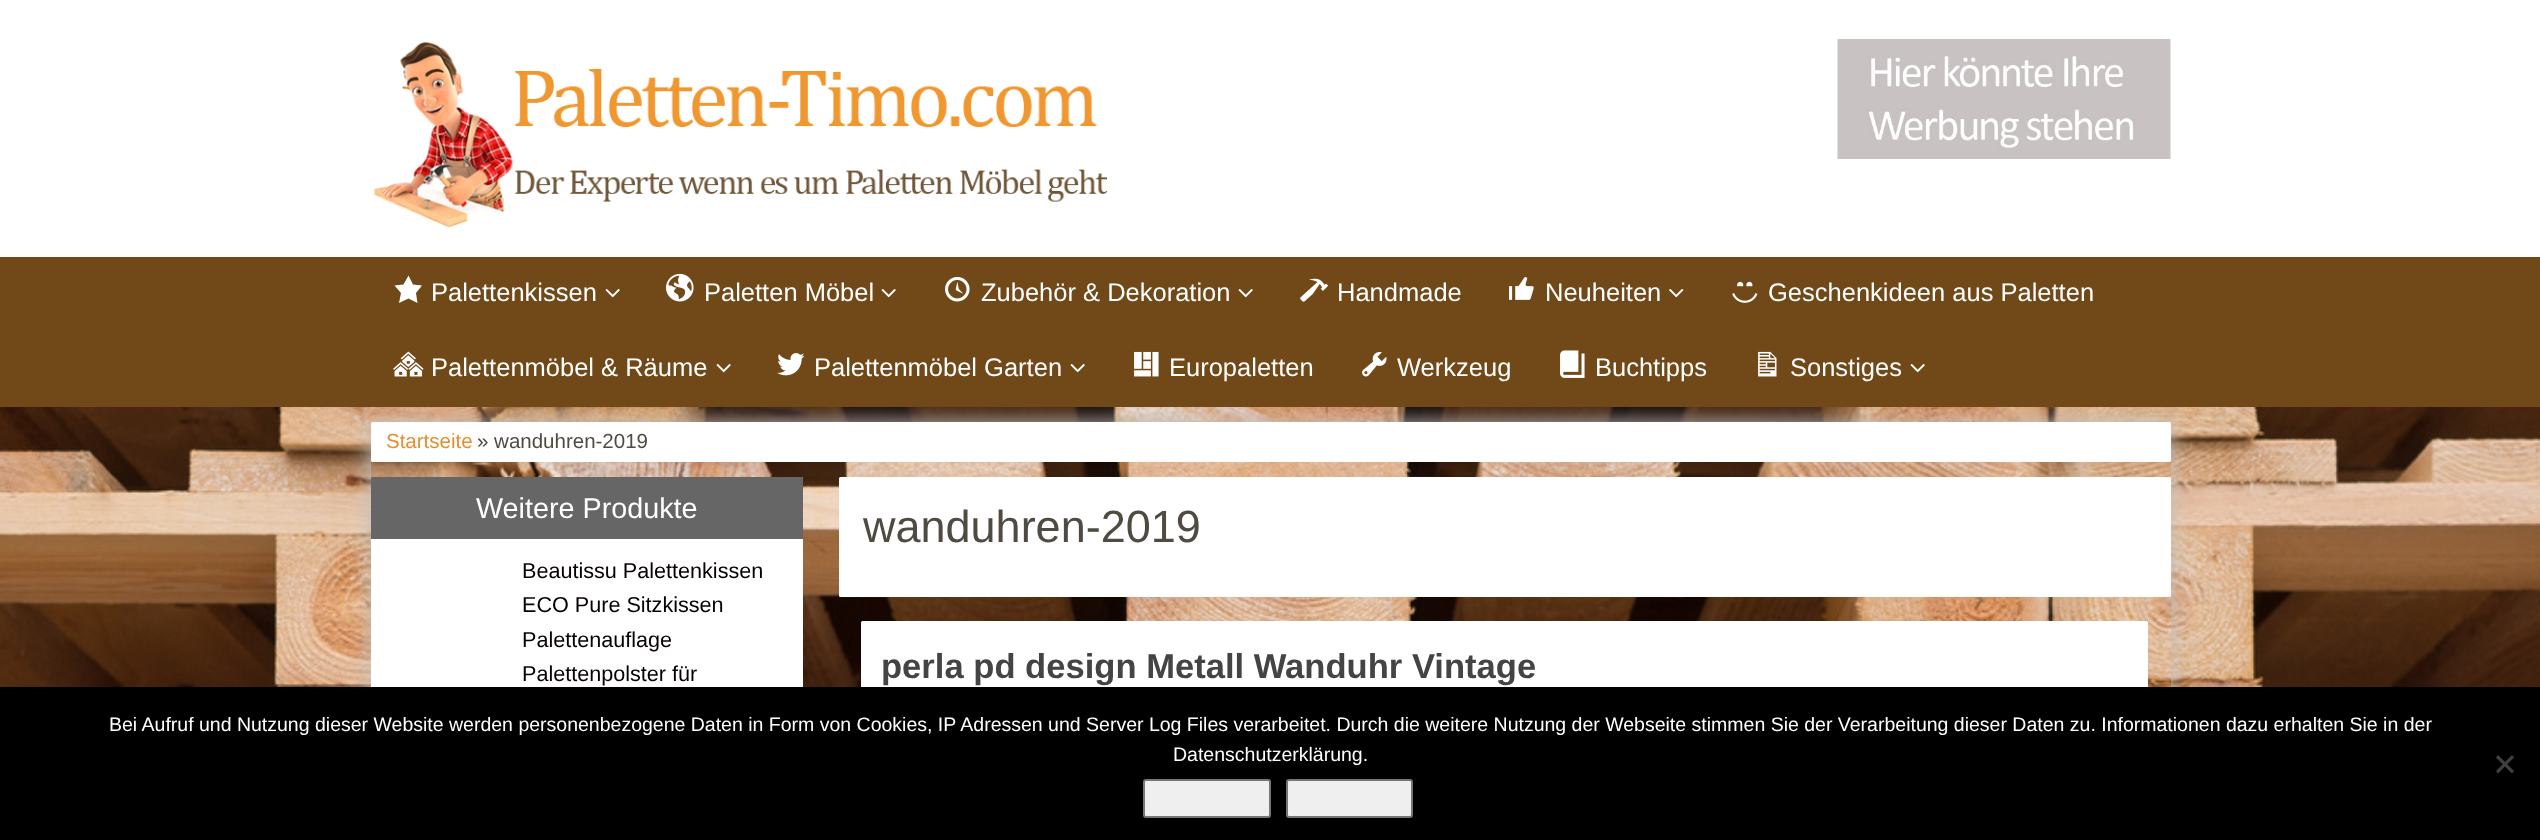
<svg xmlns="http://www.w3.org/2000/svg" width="2540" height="840">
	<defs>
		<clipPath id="clip1"><path d="M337 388H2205V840H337ZM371 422H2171V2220H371Z" clip-rule="evenodd" /></clipPath>
	</defs>
	<rect width="100%" height="100%" fill="#FFFFFF" />
	<image x="0" y="407" width="2540" height="280" href="assets/img1.png" />
	<image x="373" y="41" width="735" height="187" href="assets/img2.png" />
	<image x="1837" y="39" width="334" height="120" href="assets/img3.png" />
	<g clip-path="url(#clip1)">
		<rect x="371" y="422" width="1800" height="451" fill="#C1C1C1" filter="blur(11px)" />
	</g>
	<rect x="0" y="257" width="2540" height="150" fill="#714817" />
	<path d="M408.5 275.5L413 284.5L422 285.5L416 293L417.5 303L408.5 298.5L399 303L401 293L394.5 285.5L403.5 284.5Z" fill="#FFFFFF" />
	<text x="431" y="301" font-family="Liberation Sans" font-size="25.5" fill="#FFFFFF">Palettenkissen</text>
	<image x="605" y="289" width="15" height="9" href="assets/img4.png" />
	<image x="666" y="273" width="28" height="29" href="assets/img5.png" />
	<text x="704" y="301" font-family="Liberation Sans" font-size="25.5" fill="#FFFFFF">Paletten Möbel</text>
	<image x="881" y="289" width="15" height="9" href="assets/img4.png" />
	<image x="945" y="276" width="25" height="26" href="assets/img6.png" />
	<text x="981" y="301" font-family="Liberation Sans" font-size="25.5" fill="#FFFFFF">Zubehör &amp; Dekoration</text>
	<image x="1238" y="289" width="15" height="9" href="assets/img4.png" />
	<image x="1300" y="278" width="29" height="24" href="assets/img7.png" />
	<text x="1337" y="301" font-family="Liberation Sans" font-size="25.5" fill="#FFFFFF">Handmade</text>
	<image x="1509" y="277" width="25" height="23" href="assets/img8.png" />
	<text x="1545" y="301" font-family="Liberation Sans" font-size="25.5" fill="#FFFFFF">Neuheiten</text>
	<image x="1669" y="289" width="15" height="9" href="assets/img9.png" />
	<image x="1732" y="281" width="26" height="22" href="assets/img10.png" />
	<text x="1768" y="301" font-family="Liberation Sans" font-size="25.5" fill="#FFFFFF">Geschenkideen aus Paletten</text>
	<image x="393" y="351" width="31" height="26" href="assets/img11.png" />
	<text x="431" y="376" font-family="Liberation Sans" font-size="25.5" fill="#FFFFFF">Palettenmöbel &amp; Räume</text>
	<image x="716" y="364" width="15" height="9" href="assets/img4.png" />
	<image x="777" y="353" width="28" height="23" href="assets/img12.png" />
	<text x="814" y="376" font-family="Liberation Sans" font-size="25.5" fill="#FFFFFF">Palettenmöbel Garten</text>
	<image x="1070" y="364" width="15" height="9" href="assets/img4.png" />
	<image x="1134" y="351" width="25" height="26" href="assets/img13.png" />
	<text x="1169" y="376" font-family="Liberation Sans" font-size="25.5" fill="#FFFFFF">Europaletten</text>
	<image x="1362" y="352" width="25" height="25" href="assets/img14.png" />
	<text x="1397" y="376" font-family="Liberation Sans" font-size="25.5" fill="#FFFFFF">Werkzeug</text>
	<image x="1560" y="350" width="25" height="28" href="assets/img15.png" />
	<text x="1595" y="376" font-family="Liberation Sans" font-size="25.5" fill="#FFFFFF">Buchtipps</text>
	<image x="1758" y="351" width="19" height="26" href="assets/img16.png" />
	<text x="1790" y="376" font-family="Liberation Sans" font-size="25.5" fill="#FFFFFF">Sonstiges</text>
	<image x="1910" y="364" width="15" height="9" href="assets/img4.png" />
	<rect x="371" y="422" width="1800" height="40" rx="1.5" fill="#FFFFFF" />
	<text x="386" y="448" font-family="Liberation Sans" font-size="20.5" fill="#E38F2D">Startseite</text>
	<text x="477" y="448" font-family="Liberation Sans" font-size="20.5" fill="#4F4B43">» wanduhren-2019</text>
	<rect x="371" y="477" width="432" height="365" rx="1.5" fill="#FFFFFF" />
	<path d="M372.5 477H801.5C802.5 477 803 477.5 803 478.5V539H371V478.5C371 477.5 371.5 477 372.5 477Z" fill="#666666" />
	<text x="476" y="518" font-family="Liberation Sans" font-size="28.75" fill="#FFFFFF">Weitere Produkte</text>
	<g font-family="Liberation Sans" font-size="21.6" fill="#060000">
		<text x="522" y="578">Beautissu Palettenkissen</text>
		<text x="522" y="612">ECO Pure Sitzkissen</text>
		<text x="522" y="647">Palettenauflage</text>
		<text x="522" y="681">Palettenpolster für</text>
	</g>
	<rect x="839" y="477" width="1332" height="120" rx="1.5" fill="#FFFFFF" />
	<text x="863" y="542" font-family="Liberation Sans" font-size="45" fill="#4F4B43">wanduhren-2019</text>
	<rect x="861" y="621" width="1287" height="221" rx="1.5" fill="#FFFFFF" />
	<text x="881" y="678" font-family="Liberation Sans" font-size="34.6" font-weight="700" fill="#444444">perla pd design Metall Wanduhr Vintage</text>
	<rect x="0" y="687" width="2540" height="153" fill="#000000" />
	<g font-family="Liberation Sans" font-size="19.5" fill="#FFFFFF">
		<text x="109" y="731">Bei Aufruf und Nutzung dieser Website werden personenbezogene Daten in Form von Cookies, IP Adressen und Server Log Files verarbeitet. Durch die weitere Nutzung der Webseite stimmen Sie der Verarbeitung dieser Daten zu. Informationen dazu erhalten Sie in der</text>
		<text x="1173" y="761">Datenschutzerklärung.</text>
	</g>
	<path d="M2512 755L2514 757.5L2498 773.5L2496 771Z" fill="#404040" />
	<path d="M2496 757.5L2498 755L2514 771L2512 773.5Z" fill="#404040" />
	<rect x="1144" y="780" width="126" height="37" rx="2" fill="#EFEFEF" stroke="#767676" stroke-width="2" />
	<rect x="1287" y="780" width="125" height="37" rx="2" fill="#EFEFEF" stroke="#767676" stroke-width="2" />
</svg>
